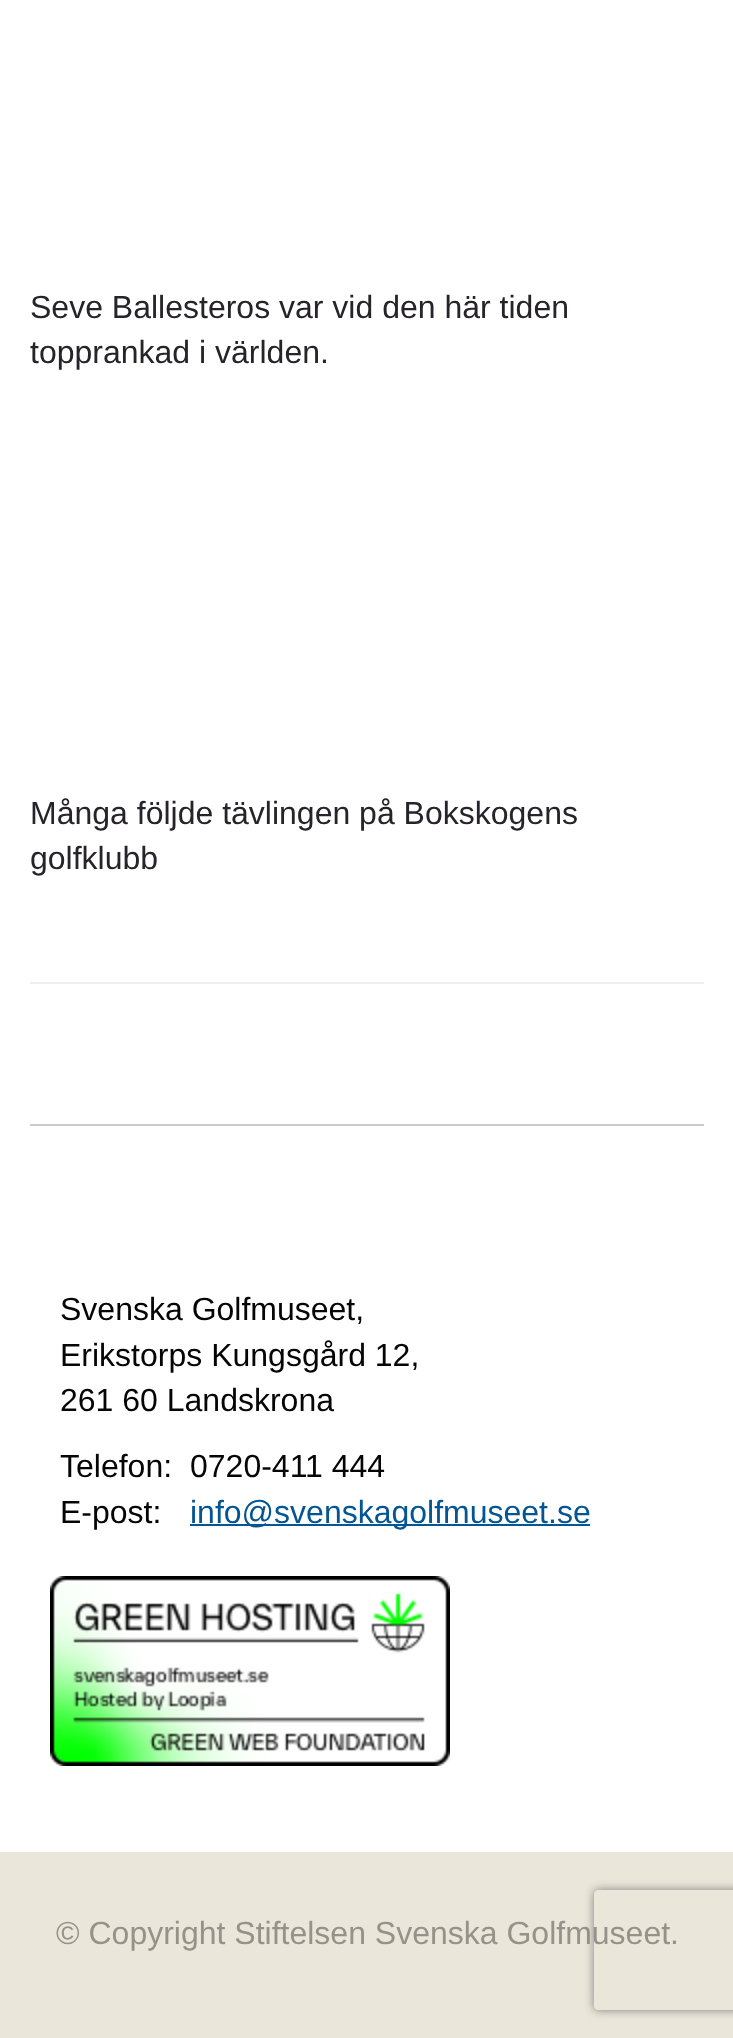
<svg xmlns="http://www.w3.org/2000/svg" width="733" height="2038">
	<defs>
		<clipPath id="clip1"><path d="M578 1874H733V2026H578ZM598 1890H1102C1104 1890 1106 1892 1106 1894V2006C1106 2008 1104 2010 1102 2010H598C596 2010 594 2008 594 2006V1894C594 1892 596 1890 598 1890Z" clip-rule="evenodd" /></clipPath>
	</defs>
	<rect width="100%" height="100%" fill="#EAE6D9" />
	<rect x="0" y="0" width="733" height="1852" fill="#FFFFFF" />
	<g font-family="Liberation Sans" font-size="32" fill="#26242A">
		<text x="30" y="318">Seve Ballesteros var vid den här tiden</text>
		<text x="30" y="363">topprankad i världen.</text>
		<text x="30" y="824">Många följde tävlingen på Bokskogens</text>
		<text x="30" y="869">golfklubb</text>
	</g>
	<rect x="30" y="982" width="674" height="2" fill="#EEEEEE" />
	<rect x="30" y="1124" width="674" height="2" fill="#CCCCCC" />
	<g font-family="Liberation Sans" font-size="32" fill="#050505">
		<text x="60" y="1320">Svenska Golfmuseet,</text>
		<text x="60" y="1366">Erikstorps Kungsgård 12,</text>
		<text x="60" y="1411">261 60 Landskrona</text>
		<text x="60" y="1477">Telefon:</text>
		<text x="190" y="1477">0720-411 444</text>
		<text x="60" y="1523">E-post:</text>
	</g>
	<rect x="190" y="1524" width="400" height="2" fill="#045594" />
	<text x="190" y="1523" font-family="Liberation Sans" font-size="32" fill="#045594">info@svenskagolfmuseet.se</text>
	<image x="50" y="1576" width="400" height="190" href="assets/img1.png" />
	<text x="56" y="1944" font-family="Liberation Sans" font-size="32" fill="#95928A">© Copyright Stiftelsen Svenska Golfmuseet.</text>
	<g clip-path="url(#clip1)">
		<rect x="594" y="1890" width="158" height="120" rx="4" fill="#808080" filter="blur(5px)" />
	</g>
</svg>
